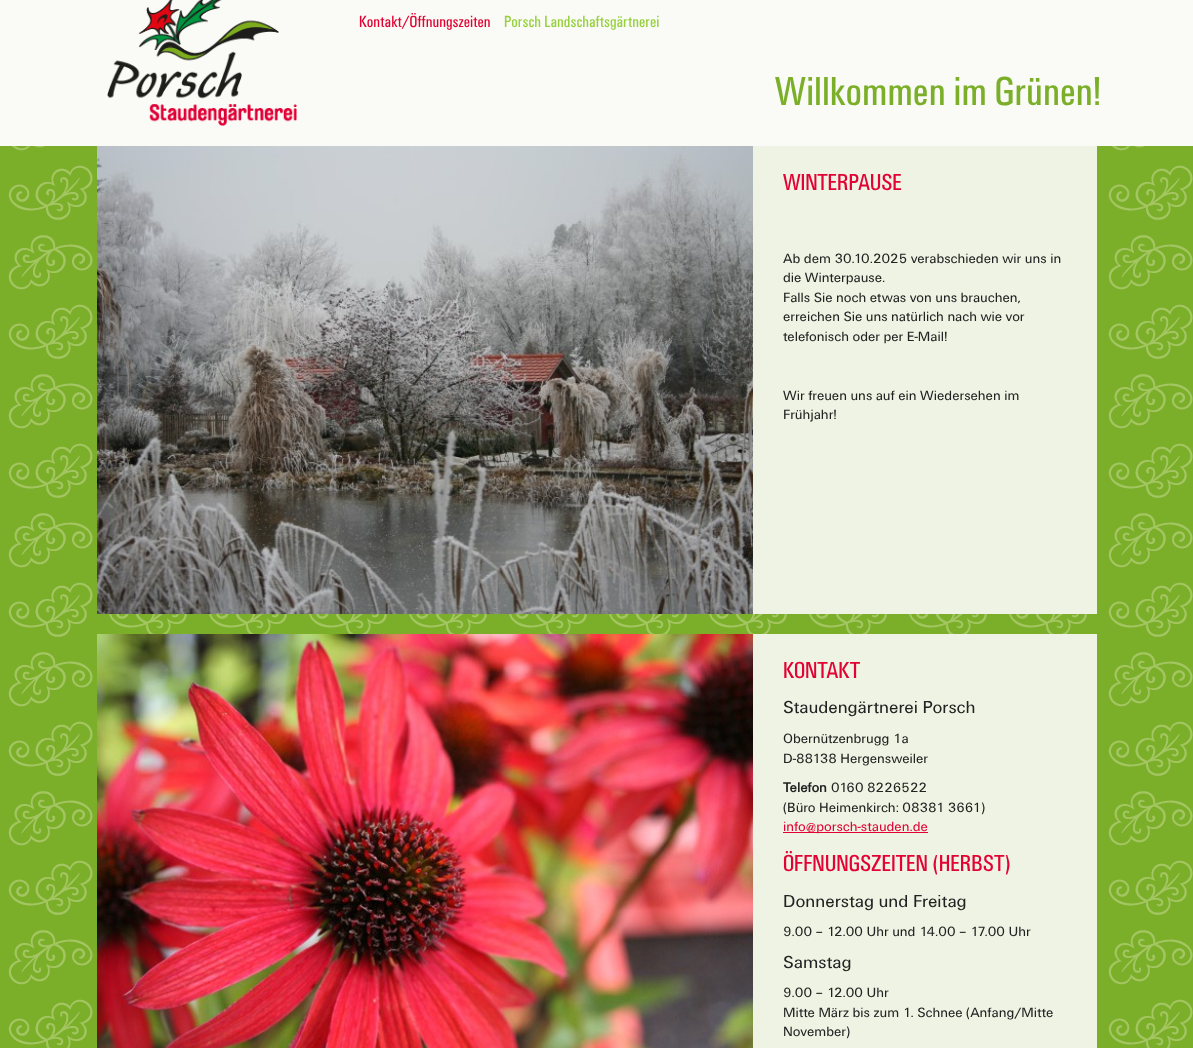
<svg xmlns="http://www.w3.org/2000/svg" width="1193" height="1048">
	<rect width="100%" height="100%" fill="#7BAF2A" />
	<image x="8" y="146" width="1185" height="902" href="assets/img1.png" />
	<rect x="0" y="0" width="1193" height="146" fill="#FAFBF6" />
	<image x="107" y="0" width="190" height="126" href="assets/img2.png" />
	<text x="359" y="27" font-family="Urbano" font-size="16.75" fill="#E20334">Kontakt/Öffnungszeiten</text>
	<text x="504" y="27" font-family="Urbano" font-size="16.75" fill="#96D03C">Porsch Landschaftsgärtnerei</text>
	<text x="775" y="105" font-family="Urbano" font-size="42" fill="#7BAF2A">Willkommen im Grünen!</text>
	<rect x="753" y="146" width="344" height="468" fill="#EEF3E3" />
	<image x="97" y="146" width="656" height="468" href="assets/img3.png" />
	<text x="783" y="190" font-family="Urbano" font-size="24" fill="#E20334">WINTERPAUSE</text>
	<g font-family="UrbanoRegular" font-size="14" fill="#222222">
		<text x="783" y="263">Ab dem 30.10.2025 verabschieden wir uns in</text>
		<text x="783" y="282">die Winterpause.</text>
		<text x="783" y="302">Falls Sie noch etwas von uns brauchen,</text>
		<text x="783" y="321">erreichen Sie uns natürlich nach wie vor</text>
		<text x="783" y="341">telefonisch oder per E-Mail!</text>
		<text x="783" y="400">Wir freuen uns auf ein Wiedersehen im</text>
		<text x="783" y="419">Frühjahr!</text>
	</g>
	<rect x="753" y="634" width="344" height="414" fill="#EEF3E3" />
	<image x="97" y="634" width="656" height="414" href="assets/img4.png" />
	<text x="783" y="678" font-family="Urbano" font-size="24" fill="#E20334">KONTAKT</text>
	<text x="783" y="713" font-family="UrbanoRegular" font-size="18" fill="#222222">Staudengärtnerei Porsch</text>
	<g font-family="UrbanoRegular" font-size="14" fill="#222222">
		<text x="783" y="743">Obernützenbrugg 1a</text>
		<text x="783" y="763">D-88138 Hergensweiler</text>
	</g>
	<text x="783" y="792" font-family="UrbanoRegular" font-size="14" font-weight="700" fill="#222222">Telefon</text>
	<g font-family="UrbanoRegular" font-size="14" fill="#222222">
		<text x="831" y="792">0160 8226522</text>
		<text x="783" y="812">(Büro Heimenkirch: 08381 3661)</text>
	</g>
	<rect x="783" y="832" width="145" height="1" fill="#E20334" />
	<text x="783" y="831" font-family="UrbanoRegular" font-size="14" fill="#E20334">info@porsch-stauden.de</text>
	<text x="783" y="871" font-family="Urbano" font-size="24" fill="#E20334">ÖFFNUNGSZEITEN (HERBST)</text>
	<text x="783" y="907" font-family="UrbanoRegular" font-size="18" fill="#222222">Donnerstag und Freitag</text>
	<text x="783" y="936" font-family="UrbanoRegular" font-size="14" fill="#222222">9.00 – 12.00 Uhr und 14.00 – 17.00 Uhr</text>
	<text x="783" y="968" font-family="UrbanoRegular" font-size="18" fill="#222222">Samstag</text>
	<g font-family="UrbanoRegular" font-size="14" fill="#222222">
		<text x="783" y="997">9.00 – 12.00 Uhr</text>
		<text x="783" y="1017">Mitte März bis zum 1. Schnee (Anfang/Mitte</text>
		<text x="783" y="1036">November)</text>
	</g>
</svg>
